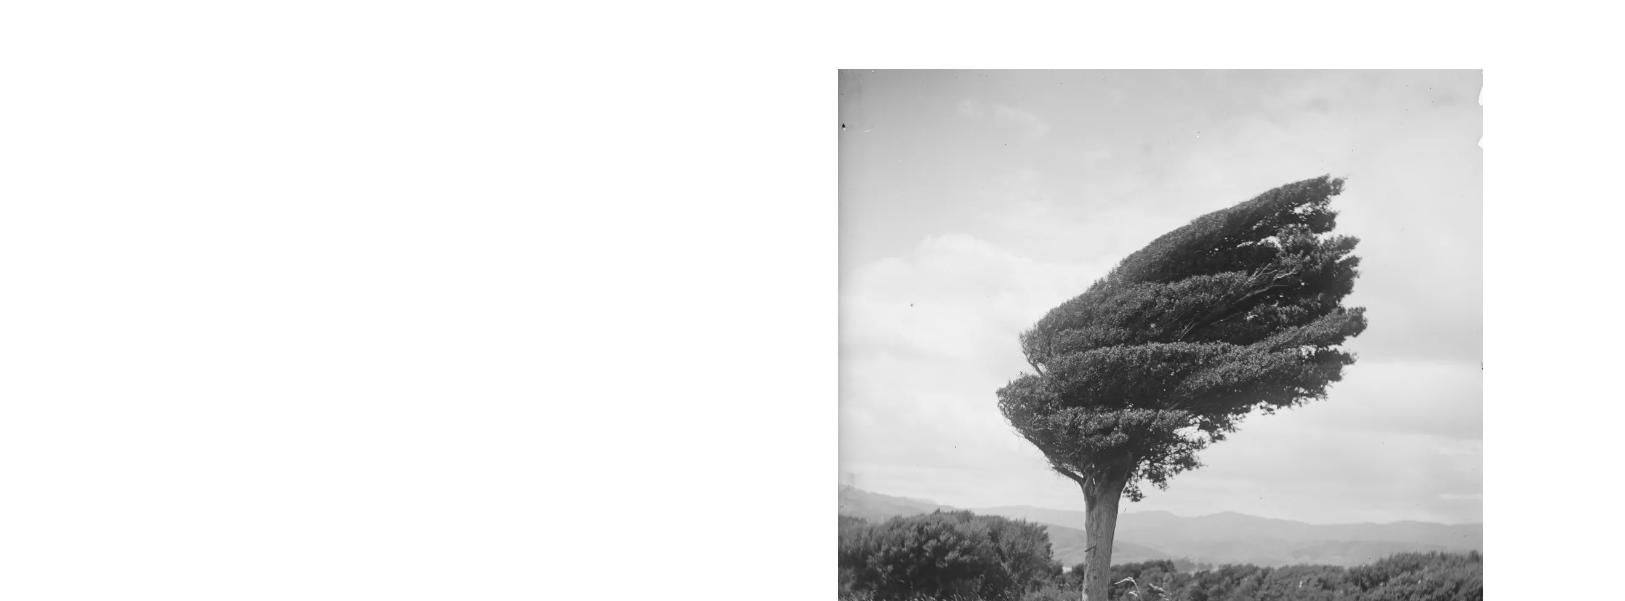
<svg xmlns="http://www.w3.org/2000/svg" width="1625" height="601">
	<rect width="100%" height="100%" fill="#FFFFFF" />
	<image x="838" y="69" width="645" height="532" href="assets/img1.png" />
</svg>
